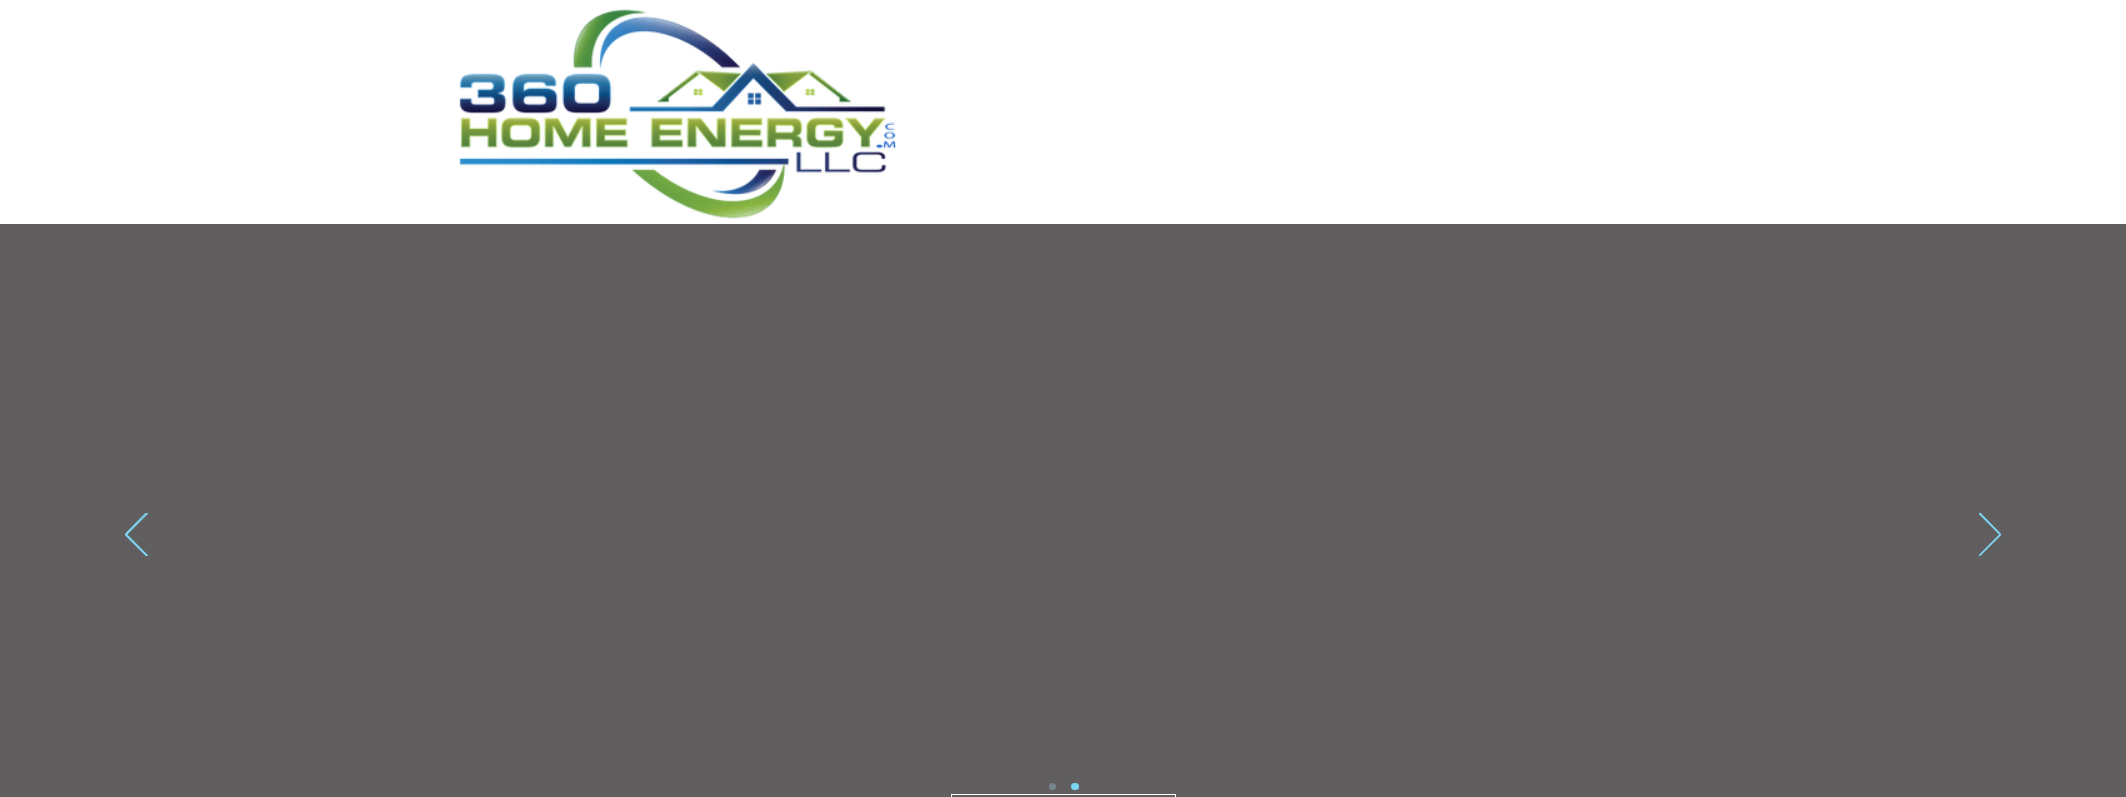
<svg xmlns="http://www.w3.org/2000/svg" width="2126" height="797">
	<defs>
		<clipPath id="clip1"><rect x="125" y="513" width="23" height="43" /></clipPath>
		<clipPath id="clip2"><rect x="1979" y="513" width="22" height="43" /></clipPath>
	</defs>
	<rect width="100%" height="100%" fill="#FFFFFF" />
	<image x="459" y="9" width="438" height="210" href="assets/img1.png" />
	<rect x="0" y="224" width="2126" height="573" fill="#605E5E" />
	<rect x="951.5" y="794.5" width="224" height="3" fill="none" stroke="#FFFFFF" />
	<g clip-path="url(#clip1)">
		<path d="M146.5 556L125 534.5L146.5 512.5L147.5 513.5L126.5 534.5L147.5 555.5Z" fill="none" stroke="#7DD4F1" stroke-width="1.1" />
	</g>
	<g clip-path="url(#clip2)">
		<path d="M1979.5 556L2001 534.5L1979.5 512.5L1979 513.5L2000 534.5L1979 555.5Z" fill="none" stroke="#7DD4F1" stroke-width="1.1" />
	</g>
	<circle cx="1052.5" cy="786.5" r="3.5" fill="#76868C" />
	<rect x="1071" y="783" width="8" height="7" rx="3.5" fill="#7DD4F1" />
</svg>
